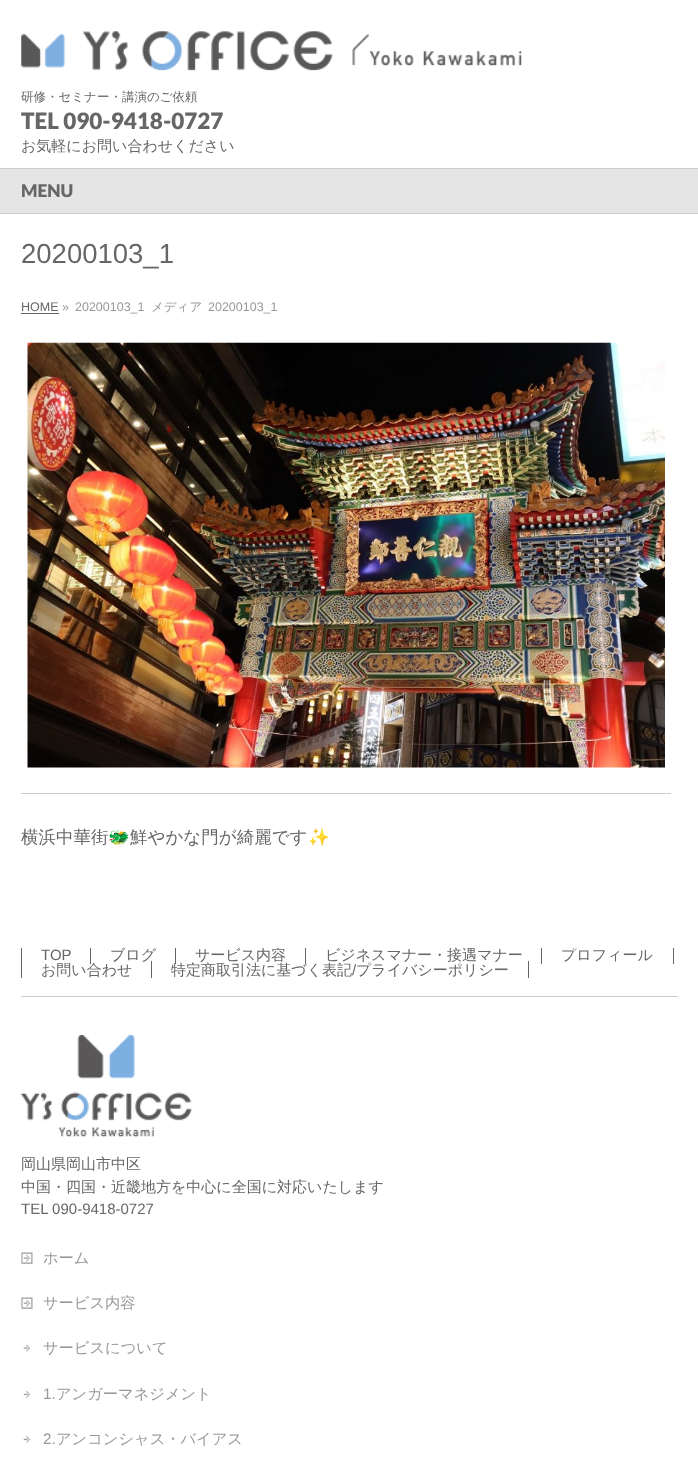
<svg xmlns="http://www.w3.org/2000/svg" width="698" height="1458">
	<defs>
		<clipPath id="clip1"><rect x="23" y="948" width="655" height="30" /></clipPath>
	</defs>
	<rect width="100%" height="100%" fill="#FFFFFF" />
	<image x="21" y="31" width="501" height="40" href="assets/img1.png" />
	<text x="21" y="101" font-family="WenQuanYi Zen Hei" font-size="12.5" font-weight="500" fill="#666666">研修・セミナー・講演のご依頼</text>
	<text x="21" y="129" font-family="Lato" font-size="22.5" font-weight="900" fill="#666666">TEL 090-9418-0727</text>
	<text x="21" y="151" font-family="WenQuanYi Zen Hei" font-size="15" font-weight="500" fill="#666666">お気軽にお問い合わせください</text>
	<rect x="0" y="168" width="698" height="1" fill="#CCCCCC" />
	<rect x="0" y="213" width="698" height="1" fill="#CCCCCC" />
	<rect x="0" y="169" width="698" height="44" fill="#E5E5E5" />
	<text x="21" y="197" font-family="Lato" font-size="17.5" font-weight="900" fill="#666666">MENU</text>
	<text x="21" y="263" font-family="Liberation Sans" font-size="27.5" fill="#666666">20200103_1</text>
	<text x="21" y="311" font-family="Liberation Sans" font-size="12.5" fill="#666666">HOME</text>
	<rect x="21" y="313" width="38" height="1" fill="#666666" />
	<g font-family="Liberation Sans" font-size="12.5" fill="#999999">
		<text x="62" y="311">»</text>
		<text x="75" y="311">20200103_1</text>
	</g>
	<text x="151" y="311" font-family="WenQuanYi Zen Hei" font-size="12.5" font-weight="500" fill="#999999">メディア</text>
	<text x="208" y="311" font-family="Liberation Sans" font-size="12.5" fill="#999999">20200103_1</text>
	<image x="27" y="342" width="638" height="426" href="assets/img2.png" />
	<rect x="21" y="793" width="650" height="1" fill="#CCCCCC" />
	<text x="21" y="843" font-family="WenQuanYi Zen Hei" font-size="17.5" font-weight="500" fill="#666666">横浜中華街</text>
	<text x="108" y="843" font-family="Noto Color Emoji" font-size="17.5" fill="#666666">🐲</text>
	<text x="130" y="843" font-family="WenQuanYi Zen Hei" font-size="17.5" font-weight="500" fill="#666666">鮮やかな門が綺麗です</text>
	<text x="308" y="843" font-family="Noto Color Emoji" font-size="17.5" fill="#666666">✨</text>
	<rect x="21" y="996" width="657" height="1" fill="#CCCCCC" />
	<rect x="21" y="948" width="1" height="30" fill="#666666" />
	<text x="41" y="960" font-family="Liberation Sans" font-size="15" fill="#666666">TOP</text>
	<rect x="90" y="948" width="1" height="16" fill="#666666" />
	<text x="110" y="960" font-family="WenQuanYi Zen Hei" font-size="15" font-weight="500" fill="#666666">ブログ</text>
	<rect x="175" y="948" width="1" height="16" fill="#666666" />
	<g clip-path="url(#clip1)">
		<text x="195" y="960" font-family="WenQuanYi Zen Hei" font-size="15" font-weight="500" fill="#666666">サービス内容</text>
	</g>
	<rect x="305" y="948" width="1" height="16" fill="#666666" />
	<text x="325" y="960" font-family="WenQuanYi Zen Hei" font-size="15" font-weight="500" fill="#666666">ビジネスマナー・接遇マナー</text>
	<rect x="541" y="948" width="1" height="16" fill="#666666" />
	<g clip-path="url(#clip1)">
		<text x="561" y="960" font-family="WenQuanYi Zen Hei" font-size="15" font-weight="500" fill="#666666">プロフィール</text>
	</g>
	<rect x="673" y="948" width="1" height="16" fill="#666666" />
	<text x="41" y="975" font-family="WenQuanYi Zen Hei" font-size="15" font-weight="500" fill="#666666">お問い合わせ</text>
	<rect x="151" y="961" width="1" height="17" fill="#666666" />
	<text x="171" y="975" font-family="WenQuanYi Zen Hei" font-size="15" font-weight="500" fill="#666666">特定商取引法に基づく表記</text>
	<text x="352" y="975" font-family="Liberation Sans" font-size="15" fill="#666666">/</text>
	<text x="356" y="975" font-family="WenQuanYi Zen Hei" font-size="15" font-weight="500" fill="#666666">プライバシーポリシー</text>
	<rect x="528" y="961" width="1" height="17" fill="#666666" />
	<image x="21" y="1035" width="171" height="102" href="assets/img3.png" />
	<g font-family="WenQuanYi Zen Hei" font-size="15" font-weight="500" fill="#666666">
		<text x="21" y="1169">岡山県岡山市中区</text>
		<text x="21" y="1192">中国・四国・近畿地方を中心に全国に対応いたします</text>
	</g>
	<text x="21" y="1214" font-family="Liberation Sans" font-size="15" fill="#666666">TEL 090-9418-0727</text>
	<image x="21" y="1252" width="12" height="12" href="assets/img4.png" />
	<text x="43" y="1263" font-family="WenQuanYi Zen Hei" font-size="15.25" font-weight="500" fill="#999999">ホーム</text>
	<image x="21" y="1297" width="12" height="12" href="assets/img4.png" />
	<text x="43" y="1308" font-family="WenQuanYi Zen Hei" font-size="15.25" font-weight="500" fill="#999999">サービス内容</text>
	<image x="23" y="1345" width="7" height="7" href="assets/img5.png" />
	<text x="43" y="1353" font-family="WenQuanYi Zen Hei" font-size="15.25" font-weight="500" fill="#999999">サービスについて</text>
	<image x="23" y="1391" width="7" height="7" href="assets/img6.png" />
	<text x="43" y="1399" font-family="Liberation Sans" font-size="15.25" fill="#999999">1.</text>
	<text x="56" y="1399" font-family="WenQuanYi Zen Hei" font-size="15.25" font-weight="500" fill="#999999">アンガーマネジメント</text>
	<image x="23" y="1436" width="7" height="7" href="assets/img6.png" />
	<text x="43" y="1444" font-family="Liberation Sans" font-size="15.25" fill="#999999">2.</text>
	<text x="56" y="1444" font-family="WenQuanYi Zen Hei" font-size="15.25" font-weight="500" fill="#999999">アンコンシャス・バイアス</text>
</svg>
